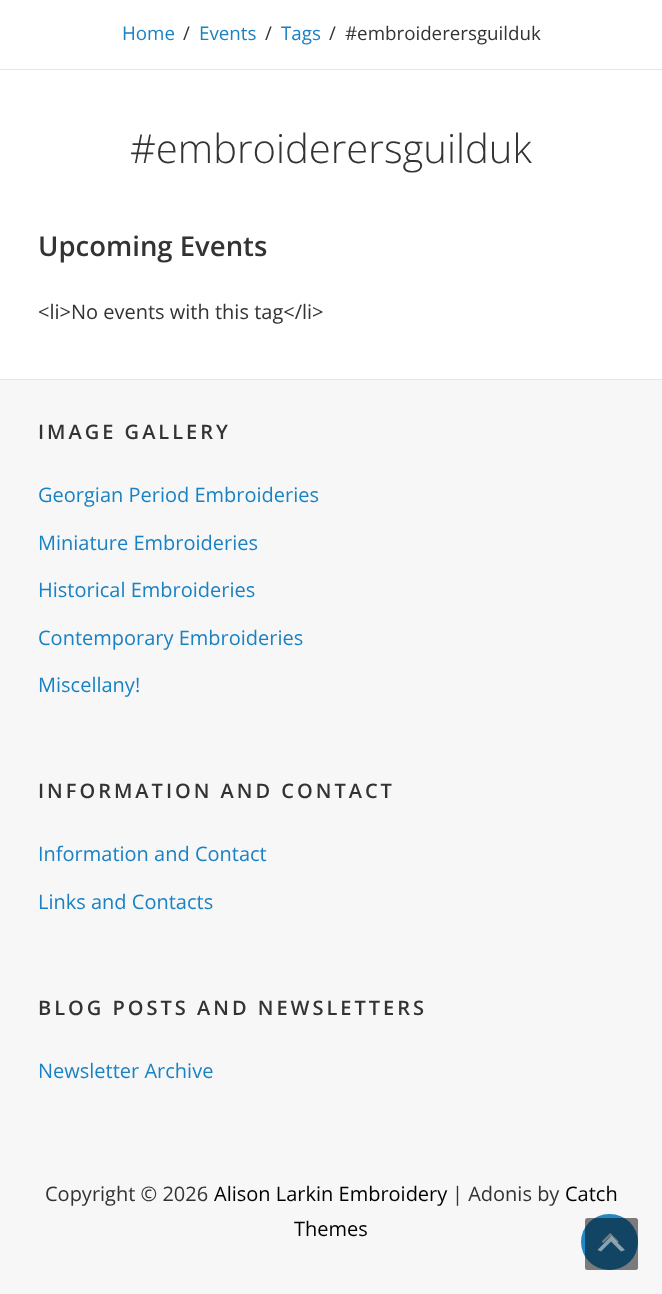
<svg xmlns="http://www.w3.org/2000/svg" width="662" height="1294">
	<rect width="100%" height="100%" fill="#FFFFFF" />
	<rect x="0" y="69" width="662" height="1" fill="#E5E5E5" />
	<text x="122" y="40" font-family="Open Sans" font-size="18.75" fill="#1982C4">Home</text>
	<text x="183" y="40" font-family="Open Sans" font-size="18.75" fill="#333333">/</text>
	<text x="199" y="40" font-family="Open Sans" font-size="18.75" fill="#1982C4">Events</text>
	<text x="265" y="40" font-family="Open Sans" font-size="18.75" fill="#333333">/</text>
	<text x="281" y="40" font-family="Open Sans" font-size="18.75" fill="#1982C4">Tags</text>
	<g font-family="Open Sans" font-size="18.75" fill="#333333">
		<text x="329" y="40">/</text>
		<text x="345" y="40">#embroiderersguilduk</text>
	</g>
	<rect x="0" y="379" width="662" height="1" fill="#E5E5E5" />
	<text x="130" y="163" font-family="Open Sans" font-size="40" font-weight="300" fill="#333333">#embroiderersguilduk</text>
	<text x="38" y="256" font-family="Open Sans" font-size="27.5" font-weight="600" fill="#333333">Upcoming Events</text>
	<text x="38" y="319" font-family="Open Sans" font-size="20" fill="#333333">&lt;li&gt;No events with this tag&lt;/li&gt;</text>
	<rect x="0" y="380" width="662" height="914" fill="#F7F7F7" />
	<text x="38" y="439" font-family="Open Sans" font-size="20" font-weight="600" letter-spacing="3" fill="#333333">IMAGE GALLERY</text>
	<g font-family="Open Sans" font-size="20" fill="#1982C4">
		<text x="38" y="502">Georgian Period Embroideries</text>
		<text x="38" y="550">Miniature Embroideries</text>
		<text x="38" y="597">Historical Embroideries</text>
		<text x="38" y="645">Contemporary Embroideries</text>
		<text x="38" y="692">Miscellany!</text>
	</g>
	<text x="38" y="798" font-family="Open Sans" font-size="20" font-weight="600" letter-spacing="3" fill="#333333">INFORMATION AND CONTACT</text>
	<g font-family="Open Sans" font-size="20" fill="#1982C4">
		<text x="38" y="861">Information and Contact</text>
		<text x="38" y="909">Links and Contacts</text>
	</g>
	<text x="38" y="1015" font-family="Open Sans" font-size="20" font-weight="600" letter-spacing="3" fill="#333333">BLOG POSTS AND NEWSLETTERS</text>
	<text x="38" y="1078" font-family="Open Sans" font-size="20" fill="#1982C4">Newsletter Archive</text>
	<text x="45" y="1201" font-family="Open Sans" font-size="20" fill="#333333">Copyright © 2026</text>
	<text x="214" y="1201" font-family="Open Sans" font-size="20" fill="#000000">Alison Larkin Embroidery</text>
	<text x="452" y="1201" font-family="Open Sans" font-size="20" fill="#333333">| Adonis by</text>
	<g font-family="Open Sans" font-size="20" fill="#000000">
		<text x="565" y="1201">Catch</text>
		<text x="294" y="1236">Themes</text>
	</g>
	<rect x="581" y="1214" width="57" height="56" rx="28" fill="#2488C6" />
	<image x="601" y="1233" width="18" height="10" href="assets/img1.png" />
	<rect x="585" y="1218" width="53" height="52" rx="2.5" fill="#000000" fill-opacity="0.5" />
	<path d="M621 1251.5L611 1241.5L601 1251.5L597.5 1250L611 1236L625 1250Z" fill="#FFFFFF" fill-opacity="0.5" />
</svg>
